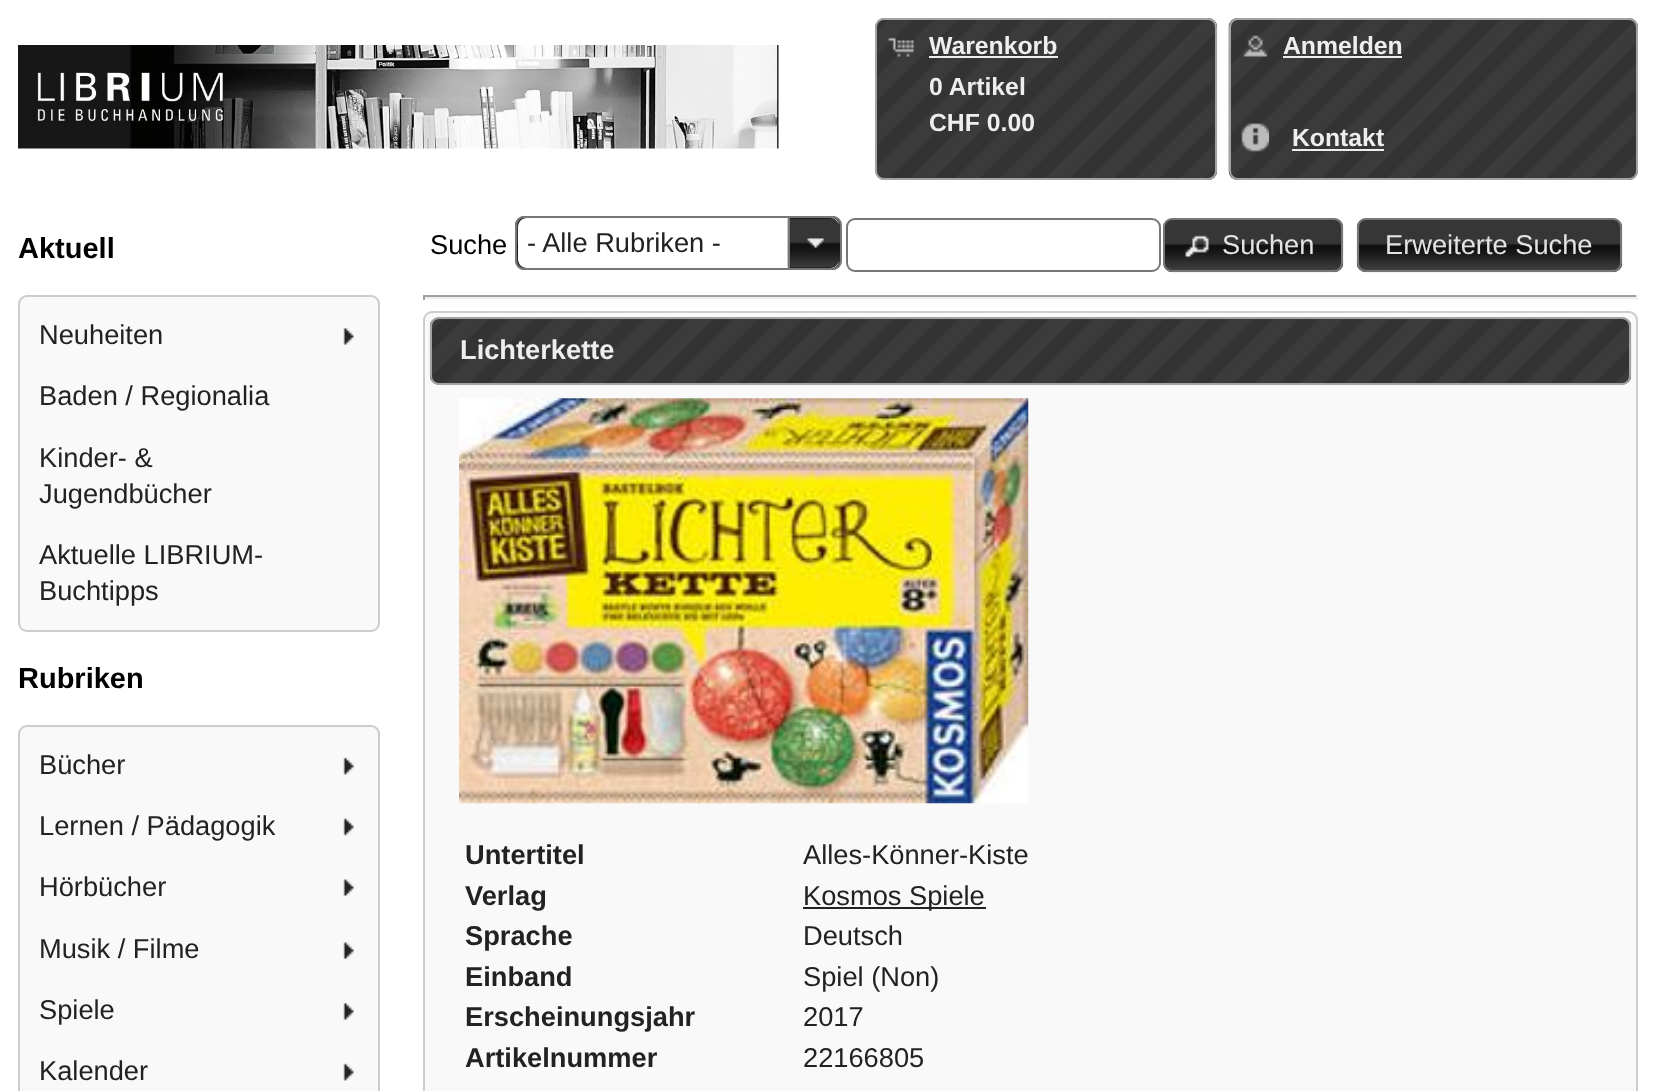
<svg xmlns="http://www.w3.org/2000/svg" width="1656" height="1091">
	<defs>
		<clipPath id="clip1"><rect x="518" y="218" width="321" height="50" rx="7" /></clipPath>
	</defs>
	<rect width="100%" height="100%" fill="#FFFFFF" />
	<image x="18" y="45" width="761" height="104" href="assets/img1.png" />
	<image x="875" y="18" width="343" height="162" href="assets/img2.png" />
	<rect x="876" y="19" width="340" height="160" rx="8" fill="none" stroke="#A3A3A3" stroke-width="2" />
	<image x="888" y="37" width="27" height="20" href="assets/img3.png" />
	<text x="929" y="54" font-family="Liberation Sans" font-size="24.75" font-weight="700" fill="#EEEEEE">Warenkorb</text>
	<rect x="929" y="56" width="129" height="2" fill="#EEEEEE" />
	<g font-family="Liberation Sans" font-size="24.75" font-weight="700" fill="#EEEEEE">
		<text x="929" y="95">0 Artikel</text>
		<text x="929" y="131">CHF 0.00</text>
	</g>
	<image x="1228" y="18" width="410" height="162" href="assets/img4.png" />
	<rect x="1230" y="19" width="407" height="160" rx="8" fill="none" stroke="#A3A3A3" stroke-width="2" />
	<image x="1243" y="35" width="25" height="22" href="assets/img5.png" />
	<text x="1283" y="54" font-family="Liberation Sans" font-size="24.75" font-weight="700" fill="#EEEEEE">Anmelden</text>
	<rect x="1283" y="56" width="119" height="2" fill="#EEEEEE" />
	<image x="1241" y="123" width="28" height="29" href="assets/img6.png" />
	<text x="1292" y="146" font-family="Liberation Sans" font-size="24.75" font-weight="700" fill="#EEEEEE">Kontakt</text>
	<rect x="1292" y="149" width="92" height="2" fill="#EEEEEE" />
	<text x="18" y="258" font-family="Liberation Sans" font-size="29" font-weight="700" fill="#000000">Aktuell</text>
	<rect x="19" y="296" width="360" height="335" rx="8" fill="#F9F9F9" stroke="#CCCCCC" stroke-width="2" />
	<text x="39" y="344" font-family="Liberation Sans" font-size="27.25" fill="#222222">Neuheiten</text>
	<image x="343" y="328" width="11" height="17" href="assets/img7.png" />
	<g font-family="Liberation Sans" font-size="27.25" fill="#222222">
		<text x="39" y="405">Baden / Regionalia</text>
		<text x="39" y="467">Kinder- &amp;</text>
		<text x="39" y="503">Jugendbücher</text>
		<text x="39" y="564">Aktuelle LIBRIUM-</text>
		<text x="39" y="600">Buchtipps</text>
	</g>
	<text x="18" y="688" font-family="Liberation Sans" font-size="29" font-weight="700" fill="#000000">Rubriken</text>
	<rect x="19" y="726" width="360" height="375" rx="8" fill="#F9F9F9" stroke="#CCCCCC" stroke-width="2" />
	<text x="39" y="774" font-family="Liberation Sans" font-size="27.25" fill="#222222">Bücher</text>
	<image x="343" y="757" width="11" height="18" href="assets/img8.png" />
	<text x="39" y="835" font-family="Liberation Sans" font-size="27.25" fill="#222222">Lernen / Pädagogik</text>
	<image x="343" y="818" width="11" height="18" href="assets/img9.png" />
	<text x="39" y="896" font-family="Liberation Sans" font-size="27.25" fill="#222222">Hörbücher</text>
	<image x="343" y="879" width="11" height="18" href="assets/img10.png" />
	<text x="39" y="958" font-family="Liberation Sans" font-size="27.25" fill="#222222">Musik / Filme</text>
	<image x="343" y="942" width="11" height="18" href="assets/img10.png" />
	<text x="39" y="1019" font-family="Liberation Sans" font-size="27.25" fill="#222222">Spiele</text>
	<image x="343" y="1003" width="11" height="17" href="assets/img7.png" />
	<text x="39" y="1080" font-family="Liberation Sans" font-size="27.25" fill="#222222">Kalender</text>
	<image x="343" y="1063" width="11" height="18" href="assets/img8.png" />
	<text x="430" y="254" font-family="Liberation Sans" font-size="27.25" fill="#000000">Suche</text>
	<image x="515" y="216" width="327" height="54" href="assets/img11.png" />
	<rect x="516" y="217" width="325" height="52" rx="8" fill="none" stroke="#777777" stroke-width="2" />
	<g clip-path="url(#clip1)">
		<path d="M527 218H832C836 218 839 221 839 225V261C839 265 836 268 832 268H527C522 268 518 264 518 259V227C518 222 522 218 527 218Z" fill="#FFFFFF" />
	</g>
	<text x="527" y="252" font-family="Liberation Sans" font-size="27.25" fill="#222222">- Alle Rubriken -</text>
	<path d="M788 218H830C835 218 839 222 839 227V259C839 264 835 268 830 268H788Z" fill="#111111" />
	<image x="787" y="218" width="52" height="50" href="assets/img12.png" />
	<rect x="788" y="218" width="2" height="50" fill="#777777" />
	<image x="807" y="238" width="18" height="11" href="assets/img13.png" />
	<rect x="847" y="219" width="313" height="52" rx="8" fill="none" stroke="#777777" stroke-width="2" />
	<image x="1163" y="218" width="181" height="55" href="assets/img14.png" />
	<rect x="1164" y="219" width="178" height="52" rx="8" fill="none" stroke="#777777" stroke-width="2" />
	<image x="1185" y="235" width="24" height="23" href="assets/img15.png" />
	<text x="1222" y="254" font-family="Liberation Sans" font-size="27.25" fill="#E3E3E3">Suchen</text>
	<image x="1356" y="218" width="267" height="55" href="assets/img16.png" />
	<rect x="1358" y="219" width="263" height="52" rx="8" fill="none" stroke="#777777" stroke-width="2" />
	<text x="1385" y="254" font-family="Liberation Sans" font-size="27.25" fill="#E3E3E3">Erweiterte Suche</text>
	<rect x="423" y="295" width="1215" height="2" fill="#9F9F9F" />
	<rect x="1636" y="295" width="2" height="5" fill="#EEEEEE" />
	<rect x="423" y="297" width="1215" height="2" fill="#EEEEEE" />
	<rect x="423" y="295" width="2" height="5" fill="#9F9F9F" />
	<rect x="424" y="312" width="1213" height="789" rx="8" fill="#F9F9F9" stroke="#CCCCCC" stroke-width="2" />
	<image x="429" y="317" width="1203" height="68" href="assets/img17.png" />
	<rect x="431" y="318" width="1199" height="66" rx="8" fill="none" stroke="#A3A3A3" stroke-width="2" />
	<text x="460" y="359" font-family="Liberation Sans" font-size="27.25" font-weight="700" fill="#EEEEEE">Lichterkette</text>
	<image x="459" y="398" width="570" height="406" href="assets/img18.png" />
	<text x="465" y="864" font-family="Liberation Sans" font-size="27.25" font-weight="700" fill="#222222">Untertitel</text>
	<text x="803" y="864" font-family="Liberation Sans" font-size="27.25" fill="#222222">Alles-Könner-Kiste</text>
	<text x="465" y="905" font-family="Liberation Sans" font-size="27.25" font-weight="700" fill="#222222">Verlag</text>
	<rect x="803" y="907" width="183" height="2" fill="#222222" />
	<text x="803" y="905" font-family="Liberation Sans" font-size="27.25" fill="#222222">Kosmos Spiele</text>
	<text x="465" y="945" font-family="Liberation Sans" font-size="27.25" font-weight="700" fill="#222222">Sprache</text>
	<text x="803" y="945" font-family="Liberation Sans" font-size="27.25" fill="#222222">Deutsch</text>
	<text x="465" y="986" font-family="Liberation Sans" font-size="27.25" font-weight="700" fill="#222222">Einband</text>
	<text x="803" y="986" font-family="Liberation Sans" font-size="27.25" fill="#222222">Spiel (Non)</text>
	<text x="465" y="1026" font-family="Liberation Sans" font-size="27.25" font-weight="700" fill="#222222">Erscheinungsjahr</text>
	<text x="803" y="1026" font-family="Liberation Sans" font-size="27.25" fill="#222222">2017</text>
	<text x="465" y="1067" font-family="Liberation Sans" font-size="27.25" font-weight="700" fill="#222222">Artikelnummer</text>
	<text x="803" y="1067" font-family="Liberation Sans" font-size="27.25" fill="#222222">22166805</text>
</svg>
